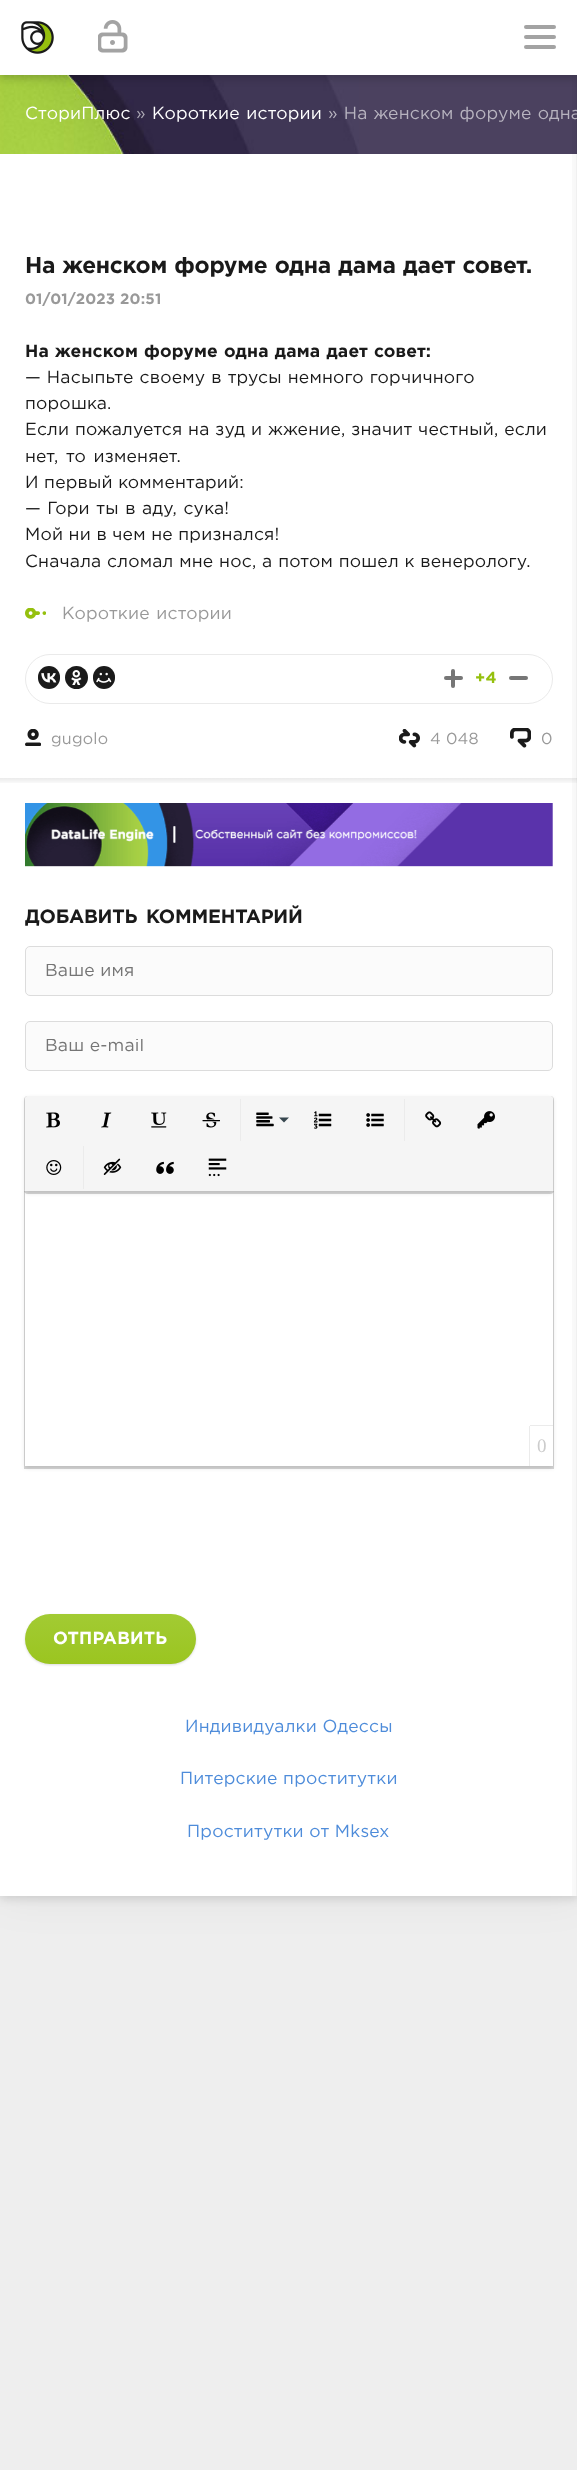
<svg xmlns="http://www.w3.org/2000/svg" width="577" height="2470">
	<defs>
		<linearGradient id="g1" gradientUnits="userSpaceOnUse" x1="560" y1="948" x2="576" y2="948"><stop offset="0" stop-color="#000000" stop-opacity="0" /><stop offset="1" stop-color="#000000" stop-opacity="0.03" /></linearGradient>
		<linearGradient id="g2" gradientUnits="userSpaceOnUse" x1="289" y1="785" x2="289" y2="778"><stop offset="0" stop-color="#000000" stop-opacity="0" /><stop offset="1" stop-color="#000000" stop-opacity="0.08" /></linearGradient>
		<clipPath id="clip1"><rect x="45" y="964" width="488" height="16" /></clipPath>
		<clipPath id="clip2"><rect x="45" y="1039" width="488" height="16" /></clipPath>
		<linearGradient id="g3" gradientUnits="userSpaceOnUse" x1="111" y1="1614" x2="111" y2="1664"><stop offset="0" stop-color="#A2CB33" /><stop offset="1" stop-color="#9BC520" /></linearGradient>
	</defs>
	<rect width="100%" height="100%" fill="#EEEEEE" />
	<rect x="0" y="0" width="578" height="1896" fill="#000000" fill-opacity="0.06" filter="blur(22px)" />
	<rect x="0" y="3" width="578" height="1896" fill="#000000" fill-opacity="0.11" filter="blur(4px)" />
	<rect x="0" y="154" width="577" height="1742" fill="#FFFFFF" />
	<rect x="359" y="75" width="218" height="79" fill="#4B415F" />
	<rect x="572" y="75" width="4" height="1821" fill="url(#g1)" />
	<rect x="576" y="75" width="1" height="1821" fill="#000000" fill-opacity="0.06" />
	<image x="0" y="75" width="359" height="79" href="assets/img3.png" />
	<rect x="0" y="3" width="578" height="75" fill="#000000" fill-opacity="0.2" filter="blur(4px)" />
	<rect x="0" y="0" width="577" height="75" fill="#FFFFFF" />
	<image x="21" y="21" width="33" height="33" href="assets/img1.png" />
	<image x="98" y="20" width="30" height="33" href="assets/img2.png" />
	<rect x="524" y="25" width="32" height="4" rx="2" fill="#A3A3A3" />
	<rect x="524" y="35" width="32" height="4" rx="2" fill="#A3A3A3" />
	<rect x="524" y="45" width="32" height="4" rx="2" fill="#A3A3A3" />
	<text x="25" y="119" font-family="Gotham" font-size="17.5" letter-spacing="0.2" fill="#FFFFFF">СториПлюс</text>
	<text x="136" y="119" font-family="Gotham" font-size="17.5" letter-spacing="0.2" fill="#ADA9B5">»</text>
	<text x="152" y="119" word-spacing="1" font-family="Gotham" font-size="17.5" letter-spacing="0.2" fill="#FFFFFF">Короткие истории</text>
	<text x="328" y="119" word-spacing="0.5" font-family="Gotham" font-size="17.5" letter-spacing="0.2" fill="#B7B3BF">» На женском форуме одна</text>
	<text x="25" y="273" word-spacing="0.75" font-family="Gotham" font-size="22.75" font-weight="700" letter-spacing="-0.25" fill="#1A1A1A">На женском форуме одна дама дает совет.</text>
	<text x="25" y="304" font-family="Gotham" font-size="15" font-weight="700" letter-spacing="0.2" fill="#999999">01/01/2023 20:51</text>
	<text x="25" y="357" word-spacing="0.5" font-family="Gotham" font-size="17.5" font-weight="700" letter-spacing="0.2" fill="#1A1A1A">На женском форуме одна дама дает совет:</text>
	<g font-family="Gotham" font-size="17.5" letter-spacing="0.2" fill="#1A1A1A">
		<text x="25" y="383" word-spacing="0.5">— Насыпьте своему в трусы немного горчичного</text>
		<text x="25" y="409">порошка.</text>
		<text x="25" y="435" word-spacing="0.25">Если пожалуется на зуд и жжение, значит честный, если</text>
		<text x="25" y="462" word-spacing="2">нет, то изменяет.</text>
		<text x="25" y="488">И первый комментарий:</text>
		<text x="25" y="514" word-spacing="1">— Гори ты в аду, сука!</text>
		<text x="25" y="540">Мой ни в чем не признался!</text>
		<text x="25" y="567" word-spacing="0.25">Cначала сломал мне нос, а потом пошел к венерологу.</text>
	</g>
	<image x="25" y="608" width="21" height="11" href="assets/img4.png" />
	<text x="62" y="619" word-spacing="1" font-family="Gotham" font-size="17.5" letter-spacing="0.2" fill="#999999">Короткие истории</text>
	<rect x="25.5" y="654.5" width="527" height="49" rx="24.5" fill="none" stroke="#EAEAEA" />
	<rect x="38" y="666" width="22" height="23" rx="11" fill="#1A1A1A" />
	<image x="41" y="673" width="16" height="10" href="assets/img5.png" />
	<circle cx="76.5" cy="677.5" r="11.5" fill="#1A1A1A" />
	<image x="71" y="670" width="11" height="15" href="assets/img6.png" />
	<rect x="93" y="666" width="22" height="23" rx="11" fill="#1A1A1A" />
	<image x="96" y="672" width="16" height="11" href="assets/img7.png" />
	<rect x="451" y="669" width="4" height="19" rx="2" fill="#767676" />
	<rect x="444" y="676" width="19" height="4" rx="2" fill="#767676" />
	<text x="475" y="683" font-family="Gotham" font-size="16" font-weight="700" letter-spacing="0.2" fill="#95C00E">+4</text>
	<rect x="509" y="676" width="19" height="4" rx="2" fill="#767676" />
	<image x="25" y="729" width="16" height="17" href="assets/img8.png" />
	<text x="51" y="744" font-family="Gotham" font-size="16" letter-spacing="0.2" fill="#999999">gugolo</text>
	<image x="399" y="729" width="21" height="19" href="assets/img9.png" />
	<text x="430" y="744" font-family="Gotham" font-size="16" letter-spacing="0.2" fill="#999999">4 048</text>
	<image x="510" y="728" width="21" height="20" href="assets/img10.png" />
	<text x="541" y="744" font-family="Gotham" font-size="16" letter-spacing="0.2" fill="#999999">0</text>
	<rect x="0" y="778" width="577" height="5" fill="url(#g2)" />
	<image x="25" y="803" width="528" height="64" href="assets/img11.png" />
	<text x="25" y="923" word-spacing="3" font-family="Gotham" font-size="19.25" font-weight="700" letter-spacing="-0.2" fill="#1A1A1A">ДОБАВИТЬ КОММЕНТАРИЙ</text>
	<rect x="25.5" y="946.5" width="527" height="49" rx="4.5" fill="#FBFBFB" stroke="#DCDCDC" />
	<g clip-path="url(#clip1)">
		<text x="45" y="976" font-family="Gotham" font-size="17.5" letter-spacing="0.2" fill="#757575">Ваше имя</text>
	</g>
	<rect x="25.5" y="1021.5" width="527" height="49" rx="4.5" fill="#FBFBFB" stroke="#DCDCDC" />
	<g clip-path="url(#clip2)">
		<text x="45" y="1051" font-family="Gotham" font-size="17.5" letter-spacing="0.2" fill="#757575">Ваш e-mail</text>
	</g>
	<rect x="24" y="1191" width="530" height="278" fill="#000000" fill-opacity="0.16" filter="blur(0.5px)" />
	<rect x="25" y="1193" width="528" height="275" fill="#000000" fill-opacity="0.12" filter="blur(2px)" />
	<rect x="25" y="1191" width="528" height="275" fill="#FFFFFF" />
	<rect x="24" y="1096" width="530" height="98" rx="4" fill="#000000" fill-opacity="0.16" filter="blur(0.5px)" />
	<rect x="25" y="1098" width="528" height="95" rx="2.5" fill="#000000" fill-opacity="0.12" filter="blur(2px)" />
	<path d="M27.5 1096H550.5C552 1096 553 1097 553 1098.5V1191H25V1098.5C25 1097 26 1096 27.5 1096Z" fill="#F5F5F5" />
	<image x="46" y="1112" width="14" height="16" href="assets/img12.png" />
	<image x="101" y="1112" width="11" height="16" href="assets/img13.png" />
	<image x="151" y="1112" width="16" height="16" href="assets/img14.png" />
	<image x="202" y="1112" width="18" height="16" href="assets/img15.png" />
	<rect x="240" y="1099" width="1" height="42" fill="#EBEBEB" />
	<image x="256" y="1112" width="18" height="15" href="assets/img16.png" />
	<path d="M279 1117.5H289L284 1122.5Z" fill="#37474F" />
	<image x="313" y="1111" width="19" height="18" href="assets/img17.png" />
	<image x="366" y="1113" width="18" height="14" href="assets/img18.png" />
	<rect x="404" y="1099" width="1" height="42" fill="#EBEBEB" />
	<image x="425" y="1111" width="17" height="17" href="assets/img19.png" />
	<image x="477" y="1111" width="18" height="18" href="assets/img20.png" />
	<image x="46" y="1160" width="16" height="15" href="assets/img21.png" />
	<rect x="83" y="1146" width="1" height="43" fill="#EBEBEB" />
	<image x="103" y="1158" width="19" height="17" href="assets/img22.png" />
	<image x="156" y="1161" width="18" height="13" href="assets/img23.png" />
	<image x="208" y="1158" width="19" height="19" href="assets/img24.png" />
	<rect x="530" y="1425" width="23" height="1" fill="#EBEBEB" />
	<rect x="529" y="1426" width="1" height="40" fill="#EBEBEB" />
	<text x="537" y="1452" font-family="Liberation Serif" font-size="19" letter-spacing="0.2" fill="#CCCCCC">0</text>
	<rect x="25" y="1615" width="171" height="50" rx="25" fill="#000000" fill-opacity="0.14" filter="blur(1px)" />
	<rect x="25" y="1614" width="171" height="50" rx="25" fill="url(#g3)" />
	<text x="53" y="1644" font-family="Gotham" font-size="17.5" font-weight="700" letter-spacing="0.2" fill="#FFFFFF">ОТПРАВИТЬ</text>
	<g font-family="Gotham" font-size="17.5" letter-spacing="0.2" fill="#4E8CDA">
		<text x="185" y="1732">Индивидуалки Одессы</text>
		<text x="180" y="1784">Питерские проститутки</text>
		<text x="187" y="1837">Проститутки от Mksex</text>
	</g>
</svg>
